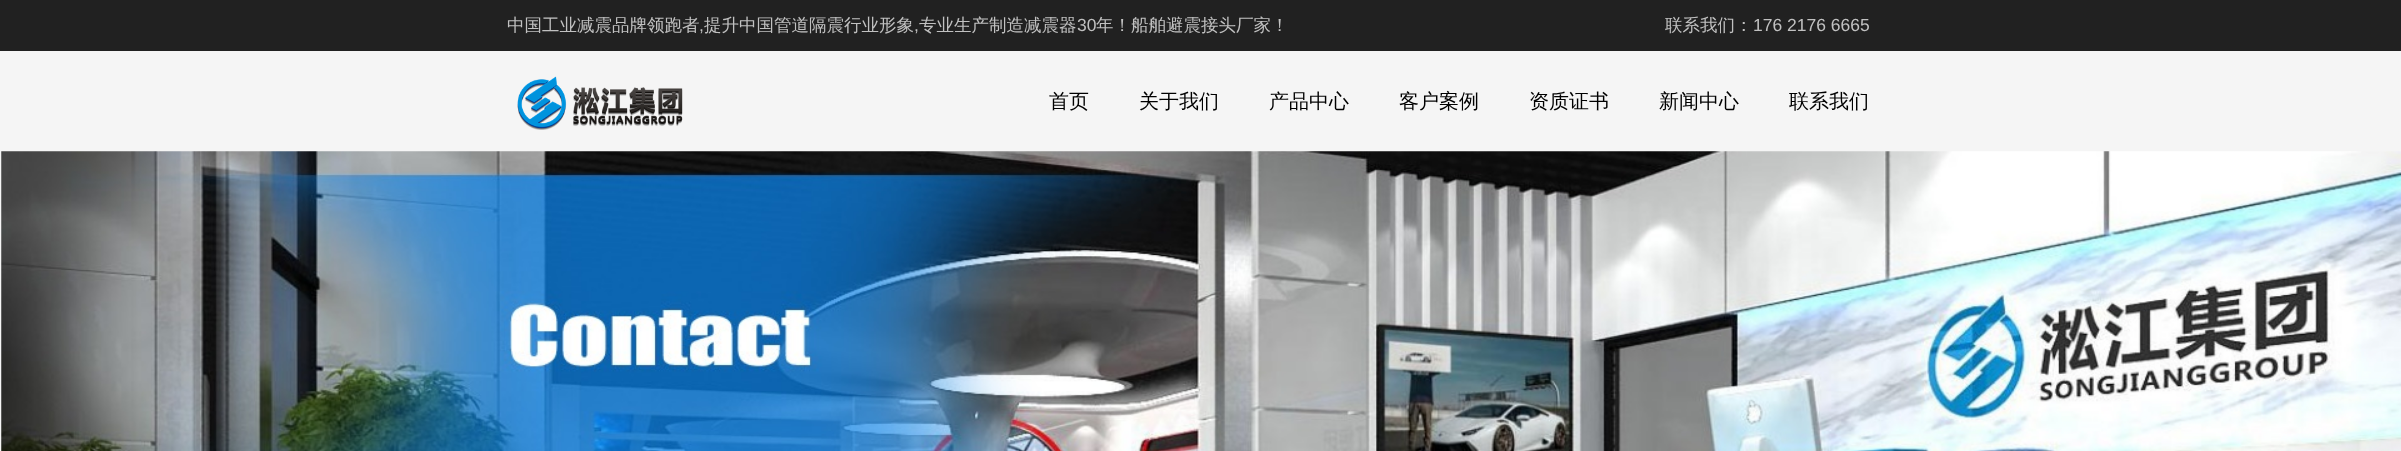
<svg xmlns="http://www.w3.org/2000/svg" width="2401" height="451">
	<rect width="100%" height="100%" fill="#F5F5F5" />
	<rect x="0" y="0" width="2401" height="51" fill="#212121" />
	<text x="507" y="31" font-family="WenQuanYi Zen Hei" font-size="17.5" font-weight="500" fill="#C1C1C1">中国工业减震品牌领跑者</text>
	<text x="699" y="31" font-family="Liberation Sans" font-size="17.5" fill="#C1C1C1">,</text>
	<text x="704" y="31" font-family="WenQuanYi Zen Hei" font-size="17.5" font-weight="500" fill="#C1C1C1">提升中国管道隔震行业形象</text>
	<text x="914" y="31" font-family="Liberation Sans" font-size="17.5" fill="#C1C1C1">,</text>
	<text x="919" y="31" font-family="WenQuanYi Zen Hei" font-size="17.5" font-weight="500" fill="#C1C1C1">专业生产制造减震器</text>
	<text x="1077" y="31" font-family="Liberation Sans" font-size="17.5" fill="#C1C1C1">30</text>
	<g font-family="WenQuanYi Zen Hei" font-size="17.5" font-weight="500" fill="#C1C1C1">
		<text x="1096" y="31">年！船舶避震接头厂家！</text>
		<text x="1665" y="31">联系我们：</text>
	</g>
	<text x="1753" y="31" font-family="Liberation Sans" font-size="17.5" fill="#C1C1C1">176 2176 6665</text>
	<image x="517" y="76" width="166" height="54" href="assets/img1.png" />
	<g font-family="WenQuanYi Zen Hei" font-size="20" font-weight="500" fill="#000000">
		<text x="1049" y="108">首页</text>
		<text x="1139" y="108">关于我们</text>
		<text x="1269" y="108">产品中心</text>
		<text x="1399" y="108">客户案例</text>
		<text x="1529" y="108">资质证书</text>
		<text x="1659" y="108">新闻中心</text>
		<text x="1789" y="108">联系我们</text>
	</g>
	<image x="1" y="151" width="2400" height="300" href="assets/img2.png" />
</svg>
